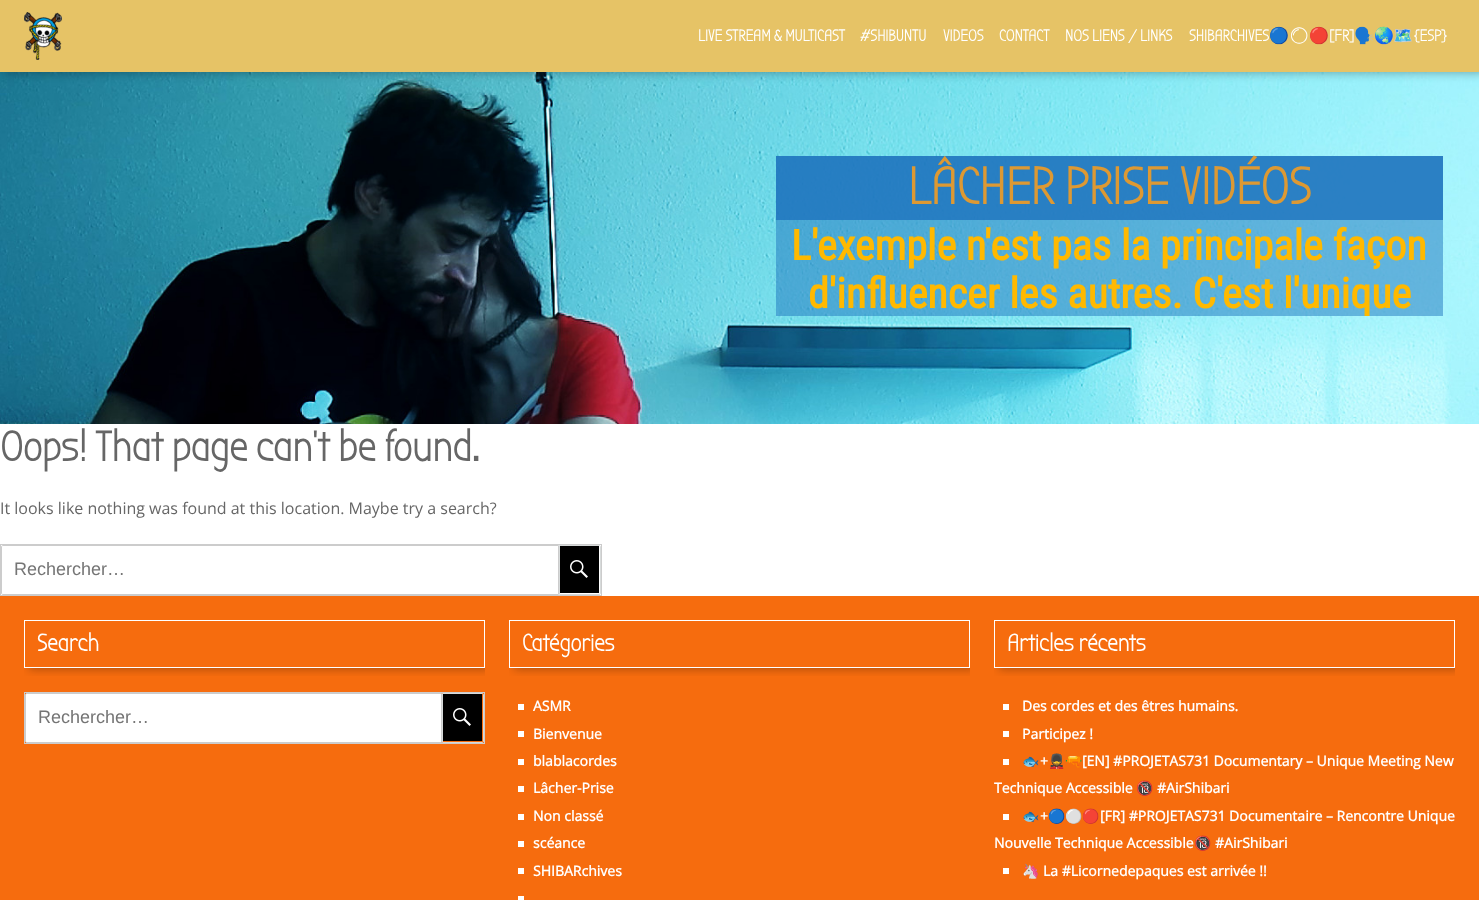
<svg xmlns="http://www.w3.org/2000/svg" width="1479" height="900">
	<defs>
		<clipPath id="clip1"><rect x="776" y="220" width="667" height="96" /></clipPath>
		<clipPath id="clip2"><rect x="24" y="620" width="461" height="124" /></clipPath>
		<clipPath id="clip3"><rect x="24" y="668" width="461" height="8" /></clipPath>
		<clipPath id="clip4"><rect x="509" y="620" width="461" height="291" /></clipPath>
		<clipPath id="clip5"><rect x="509" y="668" width="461" height="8" /></clipPath>
		<clipPath id="clip6"><rect x="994" y="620" width="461" height="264" /></clipPath>
		<clipPath id="clip7"><rect x="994" y="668" width="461" height="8" /></clipPath>
	</defs>
	<rect width="100%" height="100%" fill="#FFFFFF" />
	<image x="0" y="72" width="1479" height="352" href="assets/img2.png" />
	<rect x="5" y="1" width="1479" height="72" fill="#000000" fill-opacity="0.3" filter="blur(5px)" />
	<rect x="0" y="0" width="1479" height="72" fill="#E6C366" />
	<image x="24" y="12" width="38" height="48" href="assets/img1.png" />
	<g font-family="Bubbler One" font-size="16" font-weight="700" fill="#FFFFFF">
		<text x="698" y="41">LIVE STREAM &amp; MULTICAST</text>
		<text x="860" y="41">#SHIBUNTU</text>
		<text x="943" y="41">VIDEOS</text>
		<text x="999" y="41">CONTACT</text>
		<text x="1065" y="41">NOS LIENS / LINKS</text>
		<text x="1189" y="41">SHIBARCHIVES</text>
	</g>
	<text x="1269" y="41" font-family="Noto Color Emoji" font-size="16" font-weight="700" fill="#FFFFFF">🔵</text>
	<text x="1289" y="41" font-family="Noto Emoji" font-size="16" font-weight="700" fill="#FFFFFF">⚪</text>
	<text x="1309" y="41" font-family="Noto Color Emoji" font-size="16" font-weight="700" fill="#FFFFFF">🔴</text>
	<text x="1329" y="41" font-family="Bubbler One" font-size="16" font-weight="700" fill="#FFFFFF">[FR]</text>
	<text x="1354" y="41" font-family="Noto Color Emoji" font-size="16" font-weight="700" fill="#FFFFFF">🗣🌏🗺</text>
	<text x="1414" y="41" font-family="Bubbler One" font-size="16" font-weight="700" fill="#FFFFFF">{ESP}</text>
	<rect x="776" y="156" width="667" height="64" fill="#1E73BE" fill-opacity="0.9" />
	<text x="908" y="204" font-family="Bubbler One" font-size="52" font-weight="700" fill="#DD9933">LÂCHER PRISE VIDÉOS</text>
	<rect x="776" y="220" width="667" height="96" fill="#1E73BE" fill-opacity="0.5" />
	<text x="791" y="260" font-family="Roboto Condensed" font-size="42" font-weight="700" fill="#FFB900">L'exemple n'est pas la principale façon</text>
	<g clip-path="url(#clip1)">
		<text x="808" y="308" font-family="Roboto Condensed" font-size="42" font-weight="700" fill="#FFB900">d'influencer les autres. C'est l'unique</text>
	</g>
	<text x="0" y="461" font-family="Bubbler One" font-size="42" font-weight="700" fill="#666666">Oops! That page can’t be found.</text>
	<text x="0" y="514" font-family="Open Sans" font-size="16" fill="#666666">It looks like nothing was found at this location. Maybe try a search?</text>
	<rect x="0.5" y="544.5" width="601" height="51" fill="none" stroke="#CCCCCC" />
	<rect x="560" y="546" width="39" height="47" fill="#000000" />
	<image x="570" y="560" width="18" height="18" href="assets/img3.png" />
	<path d="M559.5 545.5H599C600 545.5 600.5 546 600.5 547V593C600.5 594 600 594.5 599 594.5H559.5Z" fill="none" stroke="#D7DADA" />
	<path d="M3 545.5H558.5V594.5H3C2 594.5 1.5 594 1.5 593V547C1.5 546 2 545.5 3 545.5Z" fill="none" stroke="#CCCCCC" />
	<text x="14" y="575" font-family="Liberation Sans" font-size="18" fill="#757575">Rechercher…</text>
	<rect x="0" y="596" width="1479" height="304" fill="#F66C0E" />
	<g clip-path="url(#clip2)">
		<g clip-path="url(#clip3)">
			<rect x="29" y="621" width="461" height="48" fill="#000000" fill-opacity="0.3" filter="blur(5px)" />
		</g>
	</g>
	<rect x="24.5" y="620.5" width="460" height="47" fill="none" stroke="#FFFFFF" />
	<text x="37" y="651" font-family="Bubbler One" font-size="24" font-weight="700" fill="#FFFFFF">Search</text>
	<rect x="24.5" y="692.5" width="460" height="51" fill="none" stroke="#CCCCCC" />
	<rect x="443" y="694" width="39" height="47" fill="#000000" />
	<image x="453" y="708" width="18" height="18" href="assets/img3.png" />
	<path d="M442.5 693.5H482C483 693.5 483.5 694 483.5 695V741C483.5 742 483 742.5 482 742.5H442.5Z" fill="none" stroke="#D7DADA" />
	<path d="M27 693.5H441.5V742.5H27C26 742.5 25.5 742 25.5 741V695C25.5 694 26 693.5 27 693.5Z" fill="#FFFFFF" stroke="#CCCCCC" />
	<text x="38" y="723" font-family="Liberation Sans" font-size="18" fill="#757575">Rechercher…</text>
	<g clip-path="url(#clip4)">
		<g clip-path="url(#clip5)">
			<rect x="514" y="621" width="461" height="48" fill="#000000" fill-opacity="0.3" filter="blur(5px)" />
		</g>
	</g>
	<rect x="509.5" y="620.5" width="460" height="47" fill="none" stroke="#FFFFFF" />
	<text x="522" y="651" font-family="Bubbler One" font-size="24" font-weight="700" fill="#FFFFFF">Catégories</text>
	<rect x="518" y="704" width="6" height="6" fill="#FFFFFF" />
	<text x="533" y="711" font-family="Open Sans" font-size="14" font-weight="700" fill="#FFFFFF">ASMR</text>
	<rect x="518" y="731" width="6" height="6" fill="#FFFFFF" />
	<text x="533" y="739" font-family="Open Sans" font-size="14" font-weight="700" fill="#FFFFFF">Bienvenue</text>
	<rect x="518" y="759" width="6" height="6" fill="#FFFFFF" />
	<text x="533" y="766" font-family="Open Sans" font-size="14" font-weight="700" fill="#FFFFFF">blablacordes</text>
	<rect x="518" y="786" width="6" height="6" fill="#FFFFFF" />
	<text x="533" y="793" font-family="Open Sans" font-size="14" font-weight="700" fill="#FFFFFF">Lâcher-Prise</text>
	<rect x="518" y="814" width="6" height="6" fill="#FFFFFF" />
	<text x="533" y="821" font-family="Open Sans" font-size="14" font-weight="700" fill="#FFFFFF">Non classé</text>
	<rect x="518" y="841" width="6" height="6" fill="#FFFFFF" />
	<text x="533" y="848" font-family="Open Sans" font-size="14" font-weight="700" fill="#FFFFFF">scéance</text>
	<rect x="518" y="868" width="6" height="6" fill="#FFFFFF" />
	<text x="533" y="876" font-family="Open Sans" font-size="14" font-weight="700" fill="#FFFFFF">SHIBARchives</text>
	<rect x="518" y="896" width="6" height="4" fill="#FFFFFF" />
	<g clip-path="url(#clip6)">
		<g clip-path="url(#clip7)">
			<rect x="999" y="621" width="461" height="48" fill="#000000" fill-opacity="0.3" filter="blur(5px)" />
		</g>
	</g>
	<rect x="994.5" y="620.5" width="460" height="47" fill="none" stroke="#FFFFFF" />
	<text x="1007" y="651" font-family="Bubbler One" font-size="24" font-weight="700" fill="#FFFFFF">Articles récents</text>
	<rect x="1003" y="704" width="6" height="6" fill="#FFFFFF" />
	<text x="1022" y="711" font-family="Open Sans" font-size="14" font-weight="700" fill="#FFFFFF">Des cordes et des êtres humains.</text>
	<rect x="1003" y="731" width="6" height="6" fill="#FFFFFF" />
	<text x="1022" y="739" font-family="Open Sans" font-size="14" font-weight="700" fill="#FFFFFF">Participez !</text>
	<rect x="1003" y="759" width="6" height="6" fill="#FFFFFF" />
	<text x="1022" y="766" font-family="Noto Color Emoji" font-size="14" font-weight="700" fill="#FFFFFF">🐟</text>
	<text x="1040" y="766" font-family="Open Sans" font-size="14" font-weight="700" fill="#FFFFFF">+</text>
	<text x="1048" y="766" font-family="Noto Color Emoji" font-size="14" font-weight="700" fill="#FFFFFF">💂🔫</text>
	<g font-family="Open Sans" font-size="14" font-weight="700" fill="#FFFFFF">
		<text x="1082" y="766">[EN] #PROJETAS731 Documentary – Unique Meeting New</text>
		<text x="994" y="793">Technique Accessible</text>
	</g>
	<text x="1136" y="793" font-family="Noto Color Emoji" font-size="14" font-weight="700" fill="#FFFFFF">🔞</text>
	<text x="1157" y="793" font-family="Open Sans" font-size="14" font-weight="700" fill="#FFFFFF">#AirShibari</text>
	<rect x="1003" y="814" width="6" height="6" fill="#FFFFFF" />
	<text x="1022" y="821" font-family="Noto Color Emoji" font-size="14" font-weight="700" fill="#FFFFFF">🐟</text>
	<text x="1040" y="821" font-family="Open Sans" font-size="14" font-weight="700" fill="#FFFFFF">+</text>
	<text x="1048" y="821" font-family="Noto Color Emoji" font-size="14" font-weight="700" fill="#FFFFFF">🔵⚪🔴</text>
	<g font-family="Open Sans" font-size="14" font-weight="700" fill="#FFFFFF">
		<text x="1100" y="821">[FR] #PROJETAS731 Documentaire – Rencontre Unique</text>
		<text x="994" y="848">Nouvelle Technique Accessible</text>
	</g>
	<text x="1194" y="848" font-family="Noto Color Emoji" font-size="14" font-weight="700" fill="#FFFFFF">🔞</text>
	<text x="1215" y="848" font-family="Open Sans" font-size="14" font-weight="700" fill="#FFFFFF">#AirShibari</text>
	<rect x="1003" y="868" width="6" height="6" fill="#FFFFFF" />
	<text x="1022" y="876" font-family="Noto Color Emoji" font-size="14" font-weight="700" fill="#FFFFFF">🦄</text>
	<text x="1043" y="876" font-family="Open Sans" font-size="14" font-weight="700" fill="#FFFFFF">La #Licornedepaques est arrivée !!</text>
</svg>
